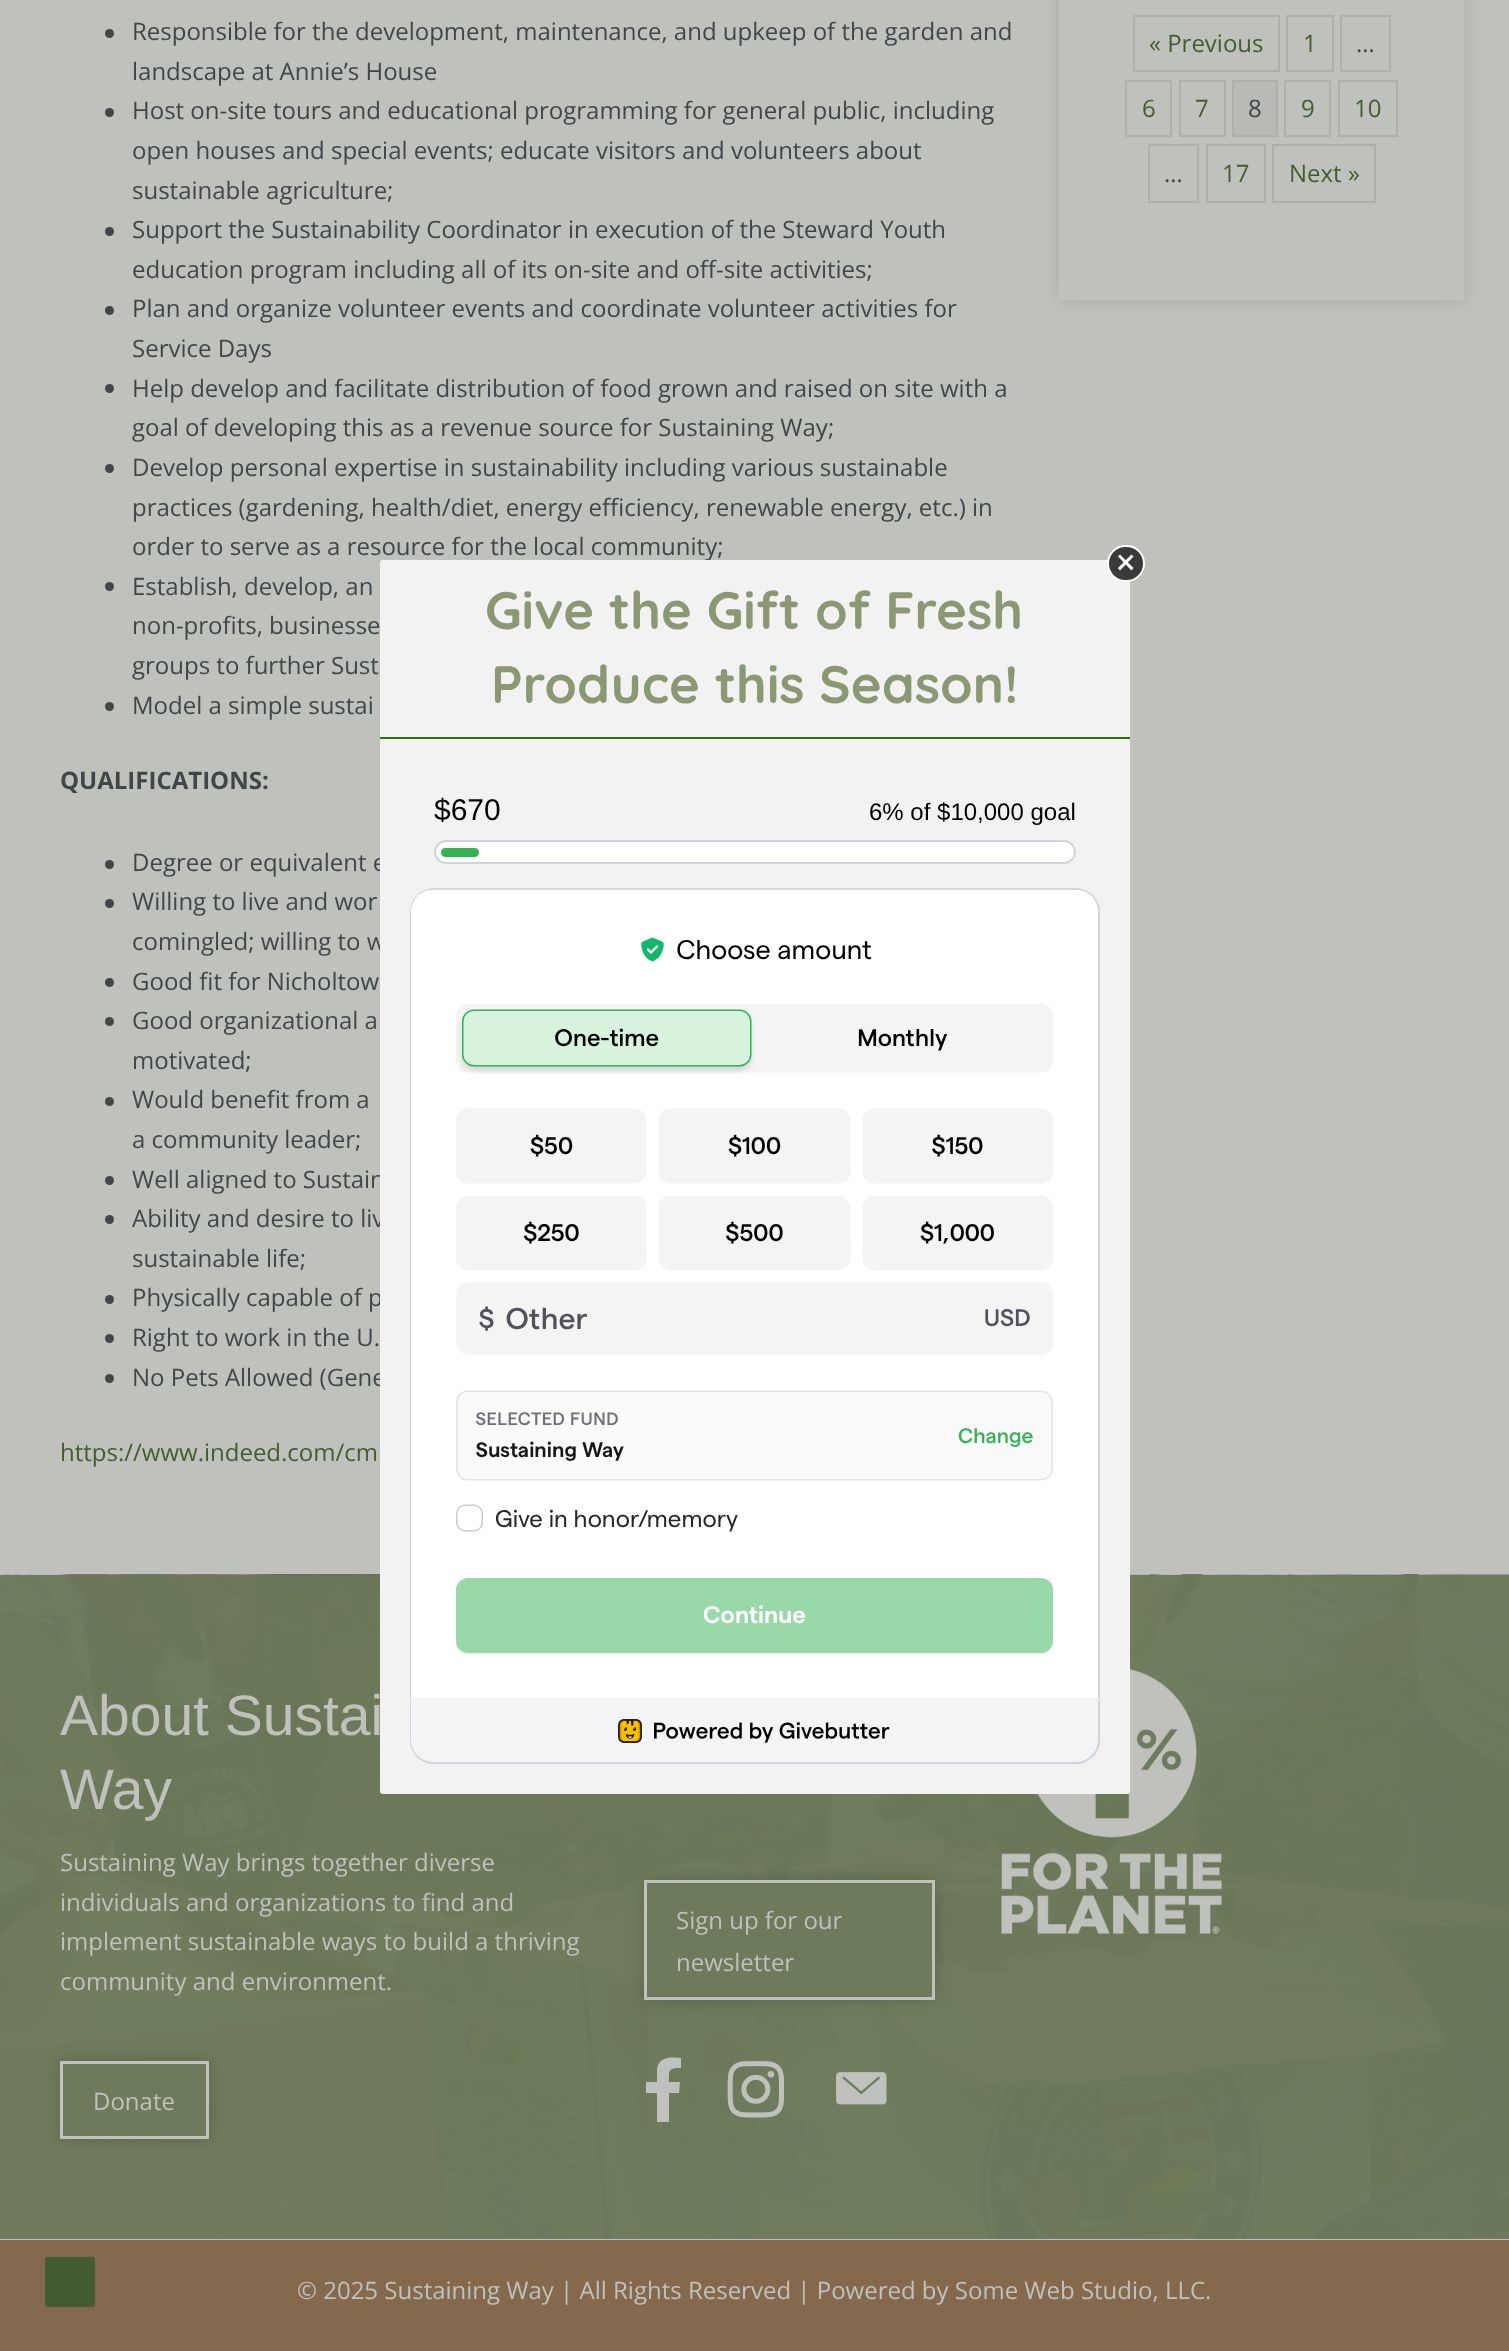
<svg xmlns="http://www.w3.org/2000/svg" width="1509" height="2351">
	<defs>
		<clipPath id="clip1"><path d="M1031 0H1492V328H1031ZM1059-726H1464V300H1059Z" clip-rule="evenodd" /></clipPath>
	</defs>
	<rect width="100%" height="100%" fill="#BFC2BC" />
	<circle cx="109.5" cy="33.5" r="4.5" fill="#414748" />
	<g font-family="Open Sans" font-size="24" fill="#414748">
		<text x="132" y="40">Responsible for the development, maintenance, and upkeep of the garden and</text>
		<text x="132" y="80">landscape at Annie’s House</text>
	</g>
	<circle cx="109.5" cy="112.5" r="4.5" fill="#414748" />
	<g font-family="Open Sans" font-size="24" fill="#414748">
		<text x="132" y="119">Host on-site tours and educational programming for general public, including</text>
		<text x="132" y="159">open houses and special events; educate visitors and volunteers about</text>
		<text x="132" y="199">sustainable agriculture;</text>
	</g>
	<circle cx="109.5" cy="231.5" r="4.5" fill="#414748" />
	<g font-family="Open Sans" font-size="24" fill="#414748">
		<text x="132" y="238">Support the Sustainability Coordinator in execution of the Steward Youth</text>
		<text x="132" y="278">education program including all of its on-site and off-site activities;</text>
	</g>
	<circle cx="109.5" cy="310.5" r="4.5" fill="#414748" />
	<g font-family="Open Sans" font-size="24" fill="#414748">
		<text x="132" y="317">Plan and organize volunteer events and coordinate volunteer activities for</text>
		<text x="132" y="357">Service Days</text>
	</g>
	<circle cx="109.5" cy="388.5" r="4.5" fill="#414748" />
	<g font-family="Open Sans" font-size="24" fill="#414748">
		<text x="132" y="397">Help develop and facilitate distribution of food grown and raised on site with a</text>
		<text x="132" y="436">goal of developing this as a revenue source for Sustaining Way;</text>
	</g>
	<circle cx="109.5" cy="468.5" r="4.5" fill="#414748" />
	<g font-family="Open Sans" font-size="24" fill="#414748">
		<text x="132" y="476">Develop personal expertise in sustainability including various sustainable</text>
		<text x="132" y="516">practices (gardening, health/diet, energy efficiency, renewable energy, etc.) in</text>
		<text x="132" y="555">order to serve as a resource for the local community;</text>
	</g>
	<circle cx="109.5" cy="586.5" r="4.5" fill="#414748" />
	<g font-family="Open Sans" font-size="24" fill="#414748">
		<text x="132" y="595">Establish, develop, an</text>
		<text x="132" y="634">non-profits, businesse</text>
		<text x="132" y="674">groups to further Sust</text>
	</g>
	<circle cx="109.5" cy="706.5" r="4.5" fill="#414748" />
	<text x="132" y="714" font-family="Open Sans" font-size="24" fill="#414748">Model a simple sustai</text>
	<text x="60" y="789" font-family="Open Sans" font-size="24" font-weight="700" fill="#414748">QUALIFICATIONS:</text>
	<circle cx="109.5" cy="864.5" r="4.5" fill="#414748" />
	<text x="132" y="871" font-family="Open Sans" font-size="24" fill="#414748">Degree or equivalent e</text>
	<circle cx="109.5" cy="903.5" r="4.5" fill="#414748" />
	<g font-family="Open Sans" font-size="24" fill="#414748">
		<text x="132" y="910">Willing to live and wor</text>
		<text x="132" y="950">comingled; willing to w</text>
	</g>
	<circle cx="109.5" cy="982.5" r="4.5" fill="#414748" />
	<text x="132" y="990" font-family="Open Sans" font-size="24" fill="#414748">Good fit for Nicholtow</text>
	<circle cx="109.5" cy="1021.5" r="4.5" fill="#414748" />
	<g font-family="Open Sans" font-size="24" fill="#414748">
		<text x="132" y="1029">Good organizational a</text>
		<text x="132" y="1069">motivated;</text>
	</g>
	<circle cx="109.5" cy="1101.5" r="4.5" fill="#414748" />
	<g font-family="Open Sans" font-size="24" fill="#414748">
		<text x="132" y="1108">Would benefit from a</text>
		<text x="132" y="1148">a community leader;</text>
	</g>
	<circle cx="109.5" cy="1180.5" r="4.5" fill="#414748" />
	<text x="132" y="1188" font-family="Open Sans" font-size="24" fill="#414748">Well aligned to Sustain</text>
	<circle cx="109.5" cy="1219.5" r="4.5" fill="#414748" />
	<g font-family="Open Sans" font-size="24" fill="#414748">
		<text x="132" y="1227">Ability and desire to liv</text>
		<text x="132" y="1267">sustainable life;</text>
	</g>
	<circle cx="109.5" cy="1299.5" r="4.5" fill="#414748" />
	<text x="132" y="1306" font-family="Open Sans" font-size="24" fill="#414748">Physically capable of p</text>
	<circle cx="109.5" cy="1338.5" r="4.5" fill="#414748" />
	<text x="132" y="1346" font-family="Open Sans" font-size="24" fill="#414748">Right to work in the U.</text>
	<circle cx="109.5" cy="1378.5" r="4.5" fill="#414748" />
	<text x="132" y="1386" font-family="Open Sans" font-size="24" fill="#414748">No Pets Allowed (Gene</text>
	<text x="60" y="1461" font-family="Open Sans" font-size="24" fill="#435D31">https://www.indeed.com/cm</text>
	<g clip-path="url(#clip1)">
		<rect x="1059" y="-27" width="405" height="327" fill="#828580" fill-opacity="0.36" filter="blur(9px)" />
	</g>
	<rect x="1134" y="16" width="145" height="55" fill="none" stroke="#ADB0AB" stroke-width="2" />
	<text x="1149" y="52" font-family="Open Sans" font-size="24" fill="#435D31">« Previous</text>
	<rect x="1287" y="16" width="46" height="55" fill="none" stroke="#ADB0AB" stroke-width="2" />
	<text x="1303" y="52" font-family="Open Sans" font-size="24" fill="#435D31">1</text>
	<rect x="1341" y="16" width="49" height="55" fill="none" stroke="#ADB0AB" stroke-width="2" />
	<text x="1356" y="52" font-family="Open Sans" font-size="24" fill="#414748">…</text>
	<rect x="1126" y="81" width="45" height="55" fill="none" stroke="#ADB0AB" stroke-width="2" />
	<text x="1142" y="117" font-family="Open Sans" font-size="24" fill="#435D31">6</text>
	<rect x="1180" y="81" width="45" height="55" fill="none" stroke="#ADB0AB" stroke-width="2" />
	<text x="1195" y="117" font-family="Open Sans" font-size="24" fill="#435D31">7</text>
	<rect x="1233" y="81" width="44" height="55" fill="#B8BBB5" stroke="#ADB0AB" stroke-width="2" />
	<text x="1248" y="117" font-family="Open Sans" font-size="24" fill="#414748">8</text>
	<rect x="1285" y="81" width="45" height="55" fill="none" stroke="#ADB0AB" stroke-width="2" />
	<text x="1301" y="117" font-family="Open Sans" font-size="24" fill="#435D31">9</text>
	<rect x="1339" y="81" width="58" height="55" fill="none" stroke="#ADB0AB" stroke-width="2" />
	<text x="1354" y="117" font-family="Open Sans" font-size="24" fill="#435D31">10</text>
	<rect x="1149" y="145" width="49" height="57" fill="none" stroke="#ADB0AB" stroke-width="2" />
	<text x="1164" y="182" font-family="Open Sans" font-size="24" fill="#414748">…</text>
	<rect x="1207" y="145" width="58" height="57" fill="none" stroke="#ADB0AB" stroke-width="2" />
	<text x="1222" y="182" font-family="Open Sans" font-size="24" fill="#435D31">17</text>
	<rect x="1273" y="145" width="102" height="57" fill="none" stroke="#ADB0AB" stroke-width="2" />
	<text x="1289" y="182" font-family="Open Sans" font-size="24" fill="#435D31">Next »</text>
	<image x="0" y="1574" width="1509" height="665" href="assets/img1.png" />
	<g font-family="Liberation Sans" font-size="57" fill="#BFC2BC">
		<text x="60" y="1735">About Sustai</text>
		<text x="60" y="1809">Way</text>
	</g>
	<g font-family="Open Sans" font-size="24" fill="#BFC2BC">
		<text x="60" y="1871">Sustaining Way brings together diverse</text>
		<text x="60" y="1911">individuals and organizations to find and</text>
		<text x="60" y="1950">implement sustainable ways to build a thriving</text>
		<text x="60" y="1990">community and environment.</text>
	</g>
	<rect x="60" y="2061" width="149" height="78" fill="#283321" fill-opacity="0.3" filter="blur(7.5px)" />
	<rect x="61.5" y="2062.5" width="146" height="75" fill="#6D7A5B" stroke="#BFC2BC" stroke-width="3" />
	<text x="93" y="2110" font-family="Open Sans" font-size="24" fill="#BFC2BC">Donate</text>
	<rect x="644" y="1880" width="291" height="120" fill="#283321" fill-opacity="0.3" filter="blur(7.5px)" />
	<rect x="645.5" y="1881.5" width="288" height="117" fill="#6D7A5B" stroke="#BFC2BC" stroke-width="3" />
	<g font-family="Open Sans" font-size="24" fill="#BFC2BC">
		<text x="676" y="1929">Sign up for our</text>
		<text x="676" y="1971">newsletter</text>
	</g>
	<path d="M679 2093H669V2122H657V2093H646V2082H657V2069C659 2056 671 2057 681 2058V2068C668 2068 669 2070 669 2082H680Z" fill="#BFC2BC" />
	<image x="727" y="2061" width="58" height="57" href="assets/img2.png" />
	<image x="836" y="2072" width="51" height="33" href="assets/img3.png" />
	<image x="1001" y="1669" width="221" height="265" href="assets/img4.png" />
	<rect x="0" y="2240" width="1509" height="111" fill="#84694D" />
	<text x="297" y="2299" font-family="Open Sans" font-size="24" fill="#BFC2BC">© 2025 Sustaining Way | All Rights Reserved | Powered by Some Web Studio, LLC.</text>
	<rect x="380" y="560" width="750" height="1234" rx="3" fill="#F2F2F2" />
	<path d="M383 560H1127C1128.5 560 1130 561.5 1130 563V738H380V563C380 561.5 381.5 560 383 560Z" fill="#F2F2F2" />
	<rect x="380" y="737" width="750" height="2" fill="#2B7000" />
	<rect x="1108" y="546" width="36" height="35" rx="17.5" fill="#3A3A3A" stroke="#FFFFFF" stroke-width="2" />
	<path d="M1131.5 570.5L1118 556.5L1120 554.5L1133.5 568Z" fill="#FFFFFF" />
	<path d="M1133.5 556.5L1120 570.5L1118 568L1131.5 554.5Z" fill="#FFFFFF" />
	<g font-family="Quicksand" font-size="52.5" font-weight="300" fill="#8A9974">
		<text x="485" y="629">Give the Gift of Fresh</text>
		<text x="491" y="703">Produce this Season!</text>
	</g>
	<text x="434" y="820" font-family="Liberation Sans" font-size="30" fill="#000000">$670</text>
	<text x="869" y="820" font-family="Liberation Sans" font-size="24" fill="#000000">6% of $10,000 goal</text>
	<rect x="435" y="841" width="640" height="22" rx="11" fill="#FFFFFF" stroke="#D1D5DB" stroke-width="2" />
	<rect x="441" y="848" width="38" height="9" rx="4.5" fill="#35B254" />
	<path d="M434 888H1076C1089.5 888 1100 898.5 1100 912V1700H410V912C410 898.5 420.5 888 434 888Z" fill="#FFFFFF" />
	<path d="M434 888C427 888 421 891 417 895L418 896C422 892 428 890 434 890H1076C1082 890 1087 892 1091 896L1093 895C1088 891 1082 888 1076 888Z" fill="#D1D5DB" />
	<path d="M1093 895C1096 898 1098 902 1100 907V1700L1098 1698V912C1098 906 1095 900 1091 896Z" fill="#D1D5DB" />
	<path d="M1100 1700H410L411 1698H1098Z" fill="#F3F4F6" />
	<path d="M417 895C412 900 410 906 410 912V1699L411 1698V912C411 906 414 900 418 896Z" fill="#D1D5DB" />
	<image x="411" y="889" width="687" height="766" href="assets/img5.png" />
	<path d="M411 1700H1098V1740C1098 1752.5 1087.5 1763 1075 1763H434C421.5 1763 411 1752.5 411 1740Z" fill="#F3F4F6" />
	<path d="M410 1700H1100V1740C1100 1753 1089 1764 1076 1764H434C420 1764 410 1753 410 1740ZM411 1700H1098V1740C1098 1752 1088 1762 1076 1762H434C421 1762 411 1752 411 1740Z" fill="#D1D5DB" fill-rule="evenodd" />
	<image x="618" y="1719" width="272" height="24" href="assets/img6.png" />
	<path d="M92 2307H48C46 2307 45 2306 45 2304V2260C45 2258 46 2257 48 2257H92C94 2257 95 2258 95 2260V2304C95 2306 94 2307 92 2307Z" fill="#435D31" />
</svg>
